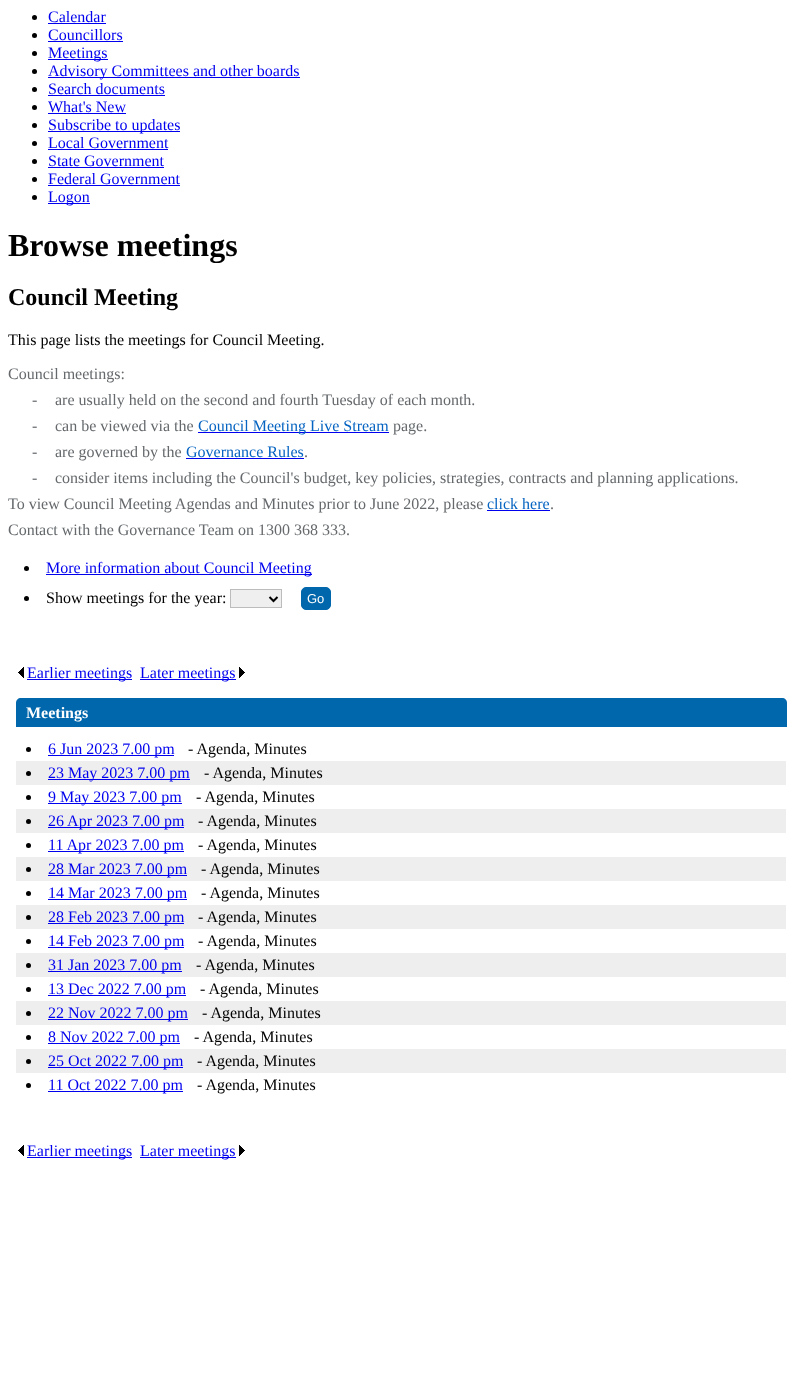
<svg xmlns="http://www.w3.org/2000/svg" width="794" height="1384">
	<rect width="100%" height="100%" fill="#FFFFFF" />
	<circle cx="34.5" cy="17.5" r="2.5" fill="#000000" />
	<text x="48" y="22" font-family="Liberation Serif" font-size="16" fill="#0000EE">Calendar</text>
	<rect x="48" y="23" width="58" height="1" fill="#0000EE" />
	<circle cx="34.5" cy="35.5" r="2.5" fill="#000000" />
	<text x="48" y="40" font-family="Liberation Serif" font-size="16" fill="#0000EE">Councillors</text>
	<rect x="48" y="41" width="75" height="1" fill="#0000EE" />
	<circle cx="34.5" cy="53.5" r="2.5" fill="#000000" />
	<rect x="48" y="59" width="60" height="1" fill="#0000EE" />
	<text x="48" y="58" font-family="Liberation Serif" font-size="16" fill="#0000EE">Meetings</text>
	<circle cx="34.5" cy="71.5" r="2.5" fill="#000000" />
	<rect x="48" y="77" width="252" height="1" fill="#0000EE" />
	<text x="48" y="76" font-family="Liberation Serif" font-size="16" fill="#0000EE">Advisory Committees and other boards</text>
	<circle cx="34.5" cy="89.5" r="2.5" fill="#000000" />
	<text x="48" y="94" font-family="Liberation Serif" font-size="16" fill="#0000EE">Search documents</text>
	<rect x="48" y="95" width="117" height="1" fill="#0000EE" />
	<circle cx="34.5" cy="107.5" r="2.5" fill="#000000" />
	<text x="48" y="112" font-family="Liberation Serif" font-size="16" fill="#0000EE">What's New</text>
	<rect x="48" y="113" width="78" height="1" fill="#0000EE" />
	<circle cx="34.5" cy="125.5" r="2.5" fill="#000000" />
	<rect x="48" y="131" width="132" height="1" fill="#0000EE" />
	<text x="48" y="130" font-family="Liberation Serif" font-size="16" fill="#0000EE">Subscribe to updates</text>
	<circle cx="34.5" cy="143.5" r="2.5" fill="#000000" />
	<text x="48" y="148" font-family="Liberation Serif" font-size="16" fill="#0000EE">Local Government</text>
	<rect x="48" y="149" width="120" height="1" fill="#0000EE" />
	<circle cx="34.5" cy="161.5" r="2.5" fill="#000000" />
	<text x="48" y="166" font-family="Liberation Serif" font-size="16" fill="#0000EE">State Government</text>
	<rect x="48" y="167" width="116" height="1" fill="#0000EE" />
	<circle cx="34.5" cy="179.5" r="2.5" fill="#000000" />
	<text x="48" y="184" font-family="Liberation Serif" font-size="16" fill="#0000EE">Federal Government</text>
	<rect x="48" y="185" width="132" height="1" fill="#0000EE" />
	<circle cx="34.5" cy="197.5" r="2.5" fill="#000000" />
	<rect x="48" y="203" width="42" height="1" fill="#0000EE" />
	<text x="48" y="202" font-family="Liberation Serif" font-size="16" fill="#0000EE">Logon</text>
	<text x="8" y="256" font-family="Liberation Serif" font-size="32" font-weight="700" fill="#000000">Browse meetings</text>
	<text x="8" y="305" font-family="Liberation Serif" font-size="24" font-weight="700" fill="#000000">Council Meeting</text>
	<text x="8" y="345" font-family="Liberation Serif" font-size="16" fill="#000000">This page lists the meetings for Council Meeting.</text>
	<g font-family="Liberation Serif" font-size="16" fill="#65696C">
		<text x="8" y="379">Council meetings:</text>
		<text x="32" y="405">-</text>
		<text x="55" y="405">are usually held on the second and fourth Tuesday of each month.</text>
		<text x="32" y="431">-</text>
		<text x="55" y="431">can be viewed via the</text>
	</g>
	<rect x="198" y="432" width="191" height="1" fill="#0000EE" />
	<text x="198" y="431" font-family="Liberation Serif" font-size="16" fill="#0563C1">Council Meeting Live Stream</text>
	<g font-family="Liberation Serif" font-size="16" fill="#65696C">
		<text x="393" y="431">page.</text>
		<text x="32" y="457">-</text>
		<text x="55" y="457">are governed by the</text>
	</g>
	<text x="186" y="457" font-family="Liberation Serif" font-size="16" fill="#0563C1">Governance Rules</text>
	<rect x="186" y="458" width="118" height="1" fill="#0000EE" />
	<g font-family="Liberation Serif" font-size="16" fill="#65696C">
		<text x="304" y="457">.</text>
		<text x="32" y="483">-</text>
		<text x="55" y="483">consider items including the Council's budget, key policies, strategies, contracts and planning applications.</text>
		<text x="8" y="509">To view Council Meeting Agendas and Minutes prior to June 2022, please</text>
	</g>
	<text x="487" y="509" font-family="Liberation Serif" font-size="16" fill="#0563C1">click here</text>
	<rect x="487" y="510" width="63" height="1" fill="#0000EE" />
	<g font-family="Liberation Serif" font-size="16" fill="#65696C">
		<text x="550" y="509">.</text>
		<text x="8" y="535">Contact with the Governance Team on 1300 368 333.</text>
	</g>
	<circle cx="26.5" cy="568.5" r="2.5" fill="#000000" />
	<rect x="46" y="574" width="266" height="1" fill="#0000EE" />
	<text x="46" y="573" font-family="Liberation Serif" font-size="16" fill="#0000EE">More information about Council Meeting</text>
	<circle cx="26.5" cy="598.5" r="2.5" fill="#000000" />
	<text x="46" y="603" font-family="Liberation Serif" font-size="16" fill="#000000">Show meetings for the year:</text>
	<rect x="230.5" y="589.5" width="51" height="18" fill="#EFEFEF" stroke="#BDBCBC" />
	<path d="M269.5 597L273.5 601L277.5 597" fill="none" stroke="#000000" stroke-width="2" />
	<rect x="301.5" y="587.5" width="29" height="22" rx="4.5" fill="#0067AC" stroke="#0067AC" />
	<text x="307" y="603" font-family="Liberation Sans" font-size="13" fill="#FFFFFF">Go</text>
	<image x="18" y="667" width="6" height="11" href="assets/img1.png" />
	<rect x="27" y="679" width="105" height="1" fill="#0000EE" />
	<text x="27" y="678" font-family="Liberation Serif" font-size="16" fill="#0000EE">Earlier meetings</text>
	<rect x="140" y="679" width="96" height="1" fill="#0000EE" />
	<text x="140" y="678" font-family="Liberation Serif" font-size="16" fill="#0000EE">Later meetings</text>
	<image x="239" y="667" width="6" height="11" href="assets/img2.png" />
	<path d="M21 698H782C785 698 787 700 787 703V727H16V703C16 700 18 698 21 698Z" fill="#0067AC" />
	<text x="26" y="718" font-family="Liberation Serif" font-size="16" font-weight="700" fill="#FFFFFF">Meetings</text>
	<circle cx="28.5" cy="749.5" r="2.5" fill="#000000" />
	<rect x="48" y="755" width="126" height="1" fill="#0000EE" />
	<text x="48" y="754" font-family="Liberation Serif" font-size="16" fill="#0000EE">6 Jun 2023 7.00 pm</text>
	<text x="188" y="754" font-family="Liberation Serif" font-size="16" fill="#000000">- Agenda, Minutes</text>
	<rect x="16" y="761" width="770" height="24" fill="#EEEEEE" />
	<circle cx="28.5" cy="773.5" r="2.5" fill="#000000" />
	<rect x="48" y="779" width="142" height="1" fill="#0000EE" />
	<text x="48" y="778" font-family="Liberation Serif" font-size="16" fill="#0000EE">23 May 2023 7.00 pm</text>
	<text x="204" y="778" font-family="Liberation Serif" font-size="16" fill="#000000">- Agenda, Minutes</text>
	<circle cx="28.5" cy="797.5" r="2.5" fill="#000000" />
	<rect x="48" y="803" width="134" height="1" fill="#0000EE" />
	<text x="48" y="802" font-family="Liberation Serif" font-size="16" fill="#0000EE">9 May 2023 7.00 pm</text>
	<text x="196" y="802" font-family="Liberation Serif" font-size="16" fill="#000000">- Agenda, Minutes</text>
	<rect x="16" y="809" width="770" height="24" fill="#EEEEEE" />
	<circle cx="28.5" cy="821.5" r="2.5" fill="#000000" />
	<rect x="48" y="827" width="136" height="1" fill="#0000EE" />
	<text x="48" y="826" font-family="Liberation Serif" font-size="16" fill="#0000EE">26 Apr 2023 7.00 pm</text>
	<text x="198" y="826" font-family="Liberation Serif" font-size="16" fill="#000000">- Agenda, Minutes</text>
	<circle cx="28.5" cy="845.5" r="2.5" fill="#000000" />
	<rect x="48" y="851" width="136" height="1" fill="#0000EE" />
	<text x="48" y="850" font-family="Liberation Serif" font-size="16" fill="#0000EE">11 Apr 2023 7.00 pm</text>
	<text x="198" y="850" font-family="Liberation Serif" font-size="16" fill="#000000">- Agenda, Minutes</text>
	<rect x="16" y="857" width="770" height="24" fill="#EEEEEE" />
	<circle cx="28.5" cy="869.5" r="2.5" fill="#000000" />
	<rect x="48" y="875" width="139" height="1" fill="#0000EE" />
	<text x="48" y="874" font-family="Liberation Serif" font-size="16" fill="#0000EE">28 Mar 2023 7.00 pm</text>
	<text x="201" y="874" font-family="Liberation Serif" font-size="16" fill="#000000">- Agenda, Minutes</text>
	<circle cx="28.5" cy="893.5" r="2.5" fill="#000000" />
	<rect x="48" y="899" width="139" height="1" fill="#0000EE" />
	<text x="48" y="898" font-family="Liberation Serif" font-size="16" fill="#0000EE">14 Mar 2023 7.00 pm</text>
	<text x="201" y="898" font-family="Liberation Serif" font-size="16" fill="#000000">- Agenda, Minutes</text>
	<rect x="16" y="905" width="770" height="24" fill="#EEEEEE" />
	<circle cx="28.5" cy="917.5" r="2.5" fill="#000000" />
	<rect x="48" y="923" width="136" height="1" fill="#0000EE" />
	<text x="48" y="922" font-family="Liberation Serif" font-size="16" fill="#0000EE">28 Feb 2023 7.00 pm</text>
	<text x="198" y="922" font-family="Liberation Serif" font-size="16" fill="#000000">- Agenda, Minutes</text>
	<circle cx="28.5" cy="941.5" r="2.5" fill="#000000" />
	<rect x="48" y="947" width="136" height="1" fill="#0000EE" />
	<text x="48" y="946" font-family="Liberation Serif" font-size="16" fill="#0000EE">14 Feb 2023 7.00 pm</text>
	<text x="198" y="946" font-family="Liberation Serif" font-size="16" fill="#000000">- Agenda, Minutes</text>
	<rect x="16" y="953" width="770" height="24" fill="#EEEEEE" />
	<circle cx="28.5" cy="965.5" r="2.5" fill="#000000" />
	<rect x="48" y="971" width="134" height="1" fill="#0000EE" />
	<text x="48" y="970" font-family="Liberation Serif" font-size="16" fill="#0000EE">31 Jan 2023 7.00 pm</text>
	<text x="196" y="970" font-family="Liberation Serif" font-size="16" fill="#000000">- Agenda, Minutes</text>
	<circle cx="28.5" cy="989.5" r="2.5" fill="#000000" />
	<rect x="48" y="995" width="138" height="1" fill="#0000EE" />
	<text x="48" y="994" font-family="Liberation Serif" font-size="16" fill="#0000EE">13 Dec 2022 7.00 pm</text>
	<text x="200" y="994" font-family="Liberation Serif" font-size="16" fill="#000000">- Agenda, Minutes</text>
	<rect x="16" y="1001" width="770" height="24" fill="#EEEEEE" />
	<circle cx="28.5" cy="1013.5" r="2.5" fill="#000000" />
	<rect x="48" y="1019" width="140" height="1" fill="#0000EE" />
	<text x="48" y="1018" font-family="Liberation Serif" font-size="16" fill="#0000EE">22 Nov 2022 7.00 pm</text>
	<text x="202" y="1018" font-family="Liberation Serif" font-size="16" fill="#000000">- Agenda, Minutes</text>
	<circle cx="28.5" cy="1037.5" r="2.5" fill="#000000" />
	<rect x="48" y="1043" width="132" height="1" fill="#0000EE" />
	<text x="48" y="1042" font-family="Liberation Serif" font-size="16" fill="#0000EE">8 Nov 2022 7.00 pm</text>
	<text x="194" y="1042" font-family="Liberation Serif" font-size="16" fill="#000000">- Agenda, Minutes</text>
	<rect x="16" y="1049" width="770" height="24" fill="#EEEEEE" />
	<circle cx="28.5" cy="1061.5" r="2.5" fill="#000000" />
	<rect x="48" y="1067" width="135" height="1" fill="#0000EE" />
	<text x="48" y="1066" font-family="Liberation Serif" font-size="16" fill="#0000EE">25 Oct 2022 7.00 pm</text>
	<text x="197" y="1066" font-family="Liberation Serif" font-size="16" fill="#000000">- Agenda, Minutes</text>
	<circle cx="28.5" cy="1085.5" r="2.5" fill="#000000" />
	<rect x="48" y="1091" width="135" height="1" fill="#0000EE" />
	<text x="48" y="1090" font-family="Liberation Serif" font-size="16" fill="#0000EE">11 Oct 2022 7.00 pm</text>
	<text x="197" y="1090" font-family="Liberation Serif" font-size="16" fill="#000000">- Agenda, Minutes</text>
	<image x="18" y="1145" width="6" height="11" href="assets/img1.png" />
	<rect x="27" y="1157" width="105" height="1" fill="#0000EE" />
	<text x="27" y="1156" font-family="Liberation Serif" font-size="16" fill="#0000EE">Earlier meetings</text>
	<rect x="140" y="1157" width="96" height="1" fill="#0000EE" />
	<text x="140" y="1156" font-family="Liberation Serif" font-size="16" fill="#0000EE">Later meetings</text>
	<image x="239" y="1145" width="6" height="11" href="assets/img2.png" />
</svg>
